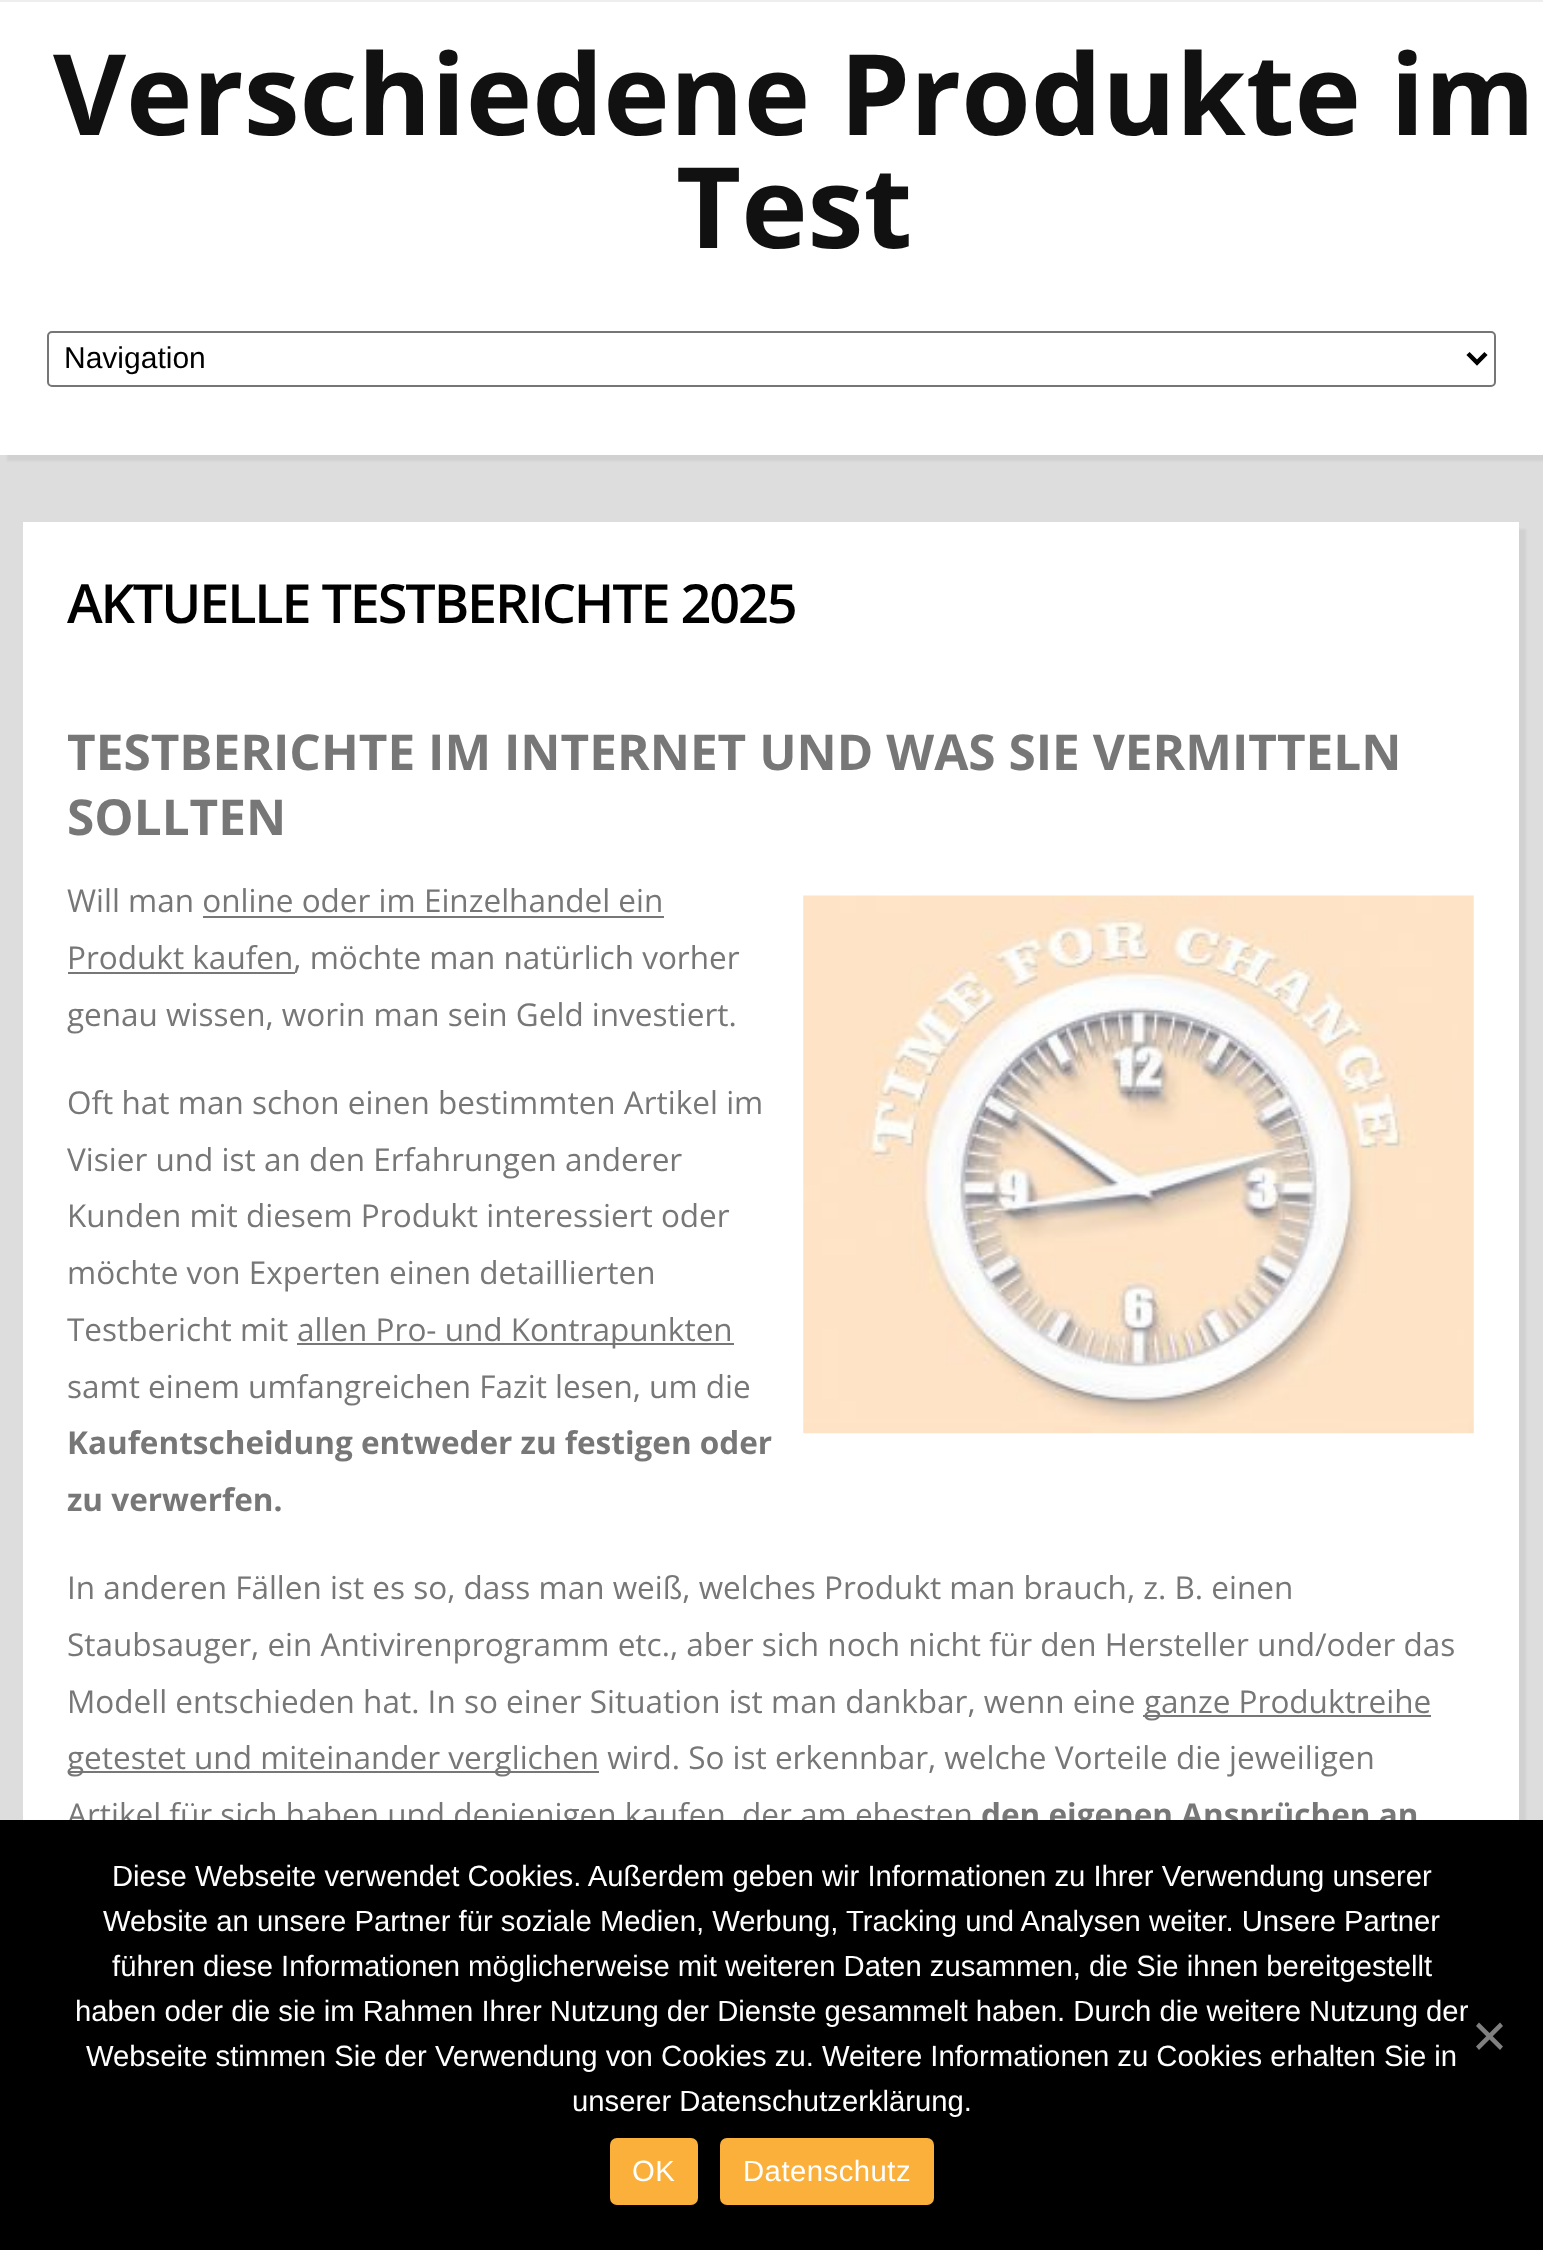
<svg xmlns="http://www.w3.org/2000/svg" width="1543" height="2250">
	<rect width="100%" height="100%" fill="#DDDDDD" />
	<rect x="7" y="7" width="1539" height="454" fill="#000000" fill-opacity="0.05" filter="blur(1px)" />
	<rect x="0" y="2" width="1543" height="453" fill="#FFFFFF" />
	<rect x="0" y="0" width="1543" height="2" fill="#EEEEEE" />
	<g font-family="Open Sans" font-size="112.5" font-weight="700" fill="#111111">
		<text x="53" y="135">Verschiedene Produkte im</text>
		<text x="676" y="248">Test</text>
	</g>
	<rect x="48" y="332" width="1447" height="54" rx="4" fill="none" stroke="#767676" stroke-width="2" />
	<path d="M1468 353.5L1477 362.5L1486 353.5" fill="none" stroke="#000000" stroke-width="4.5" />
	<text x="64" y="368" font-family="Liberation Sans" font-size="30" fill="#000000">Navigation</text>
	<rect x="29" y="529" width="1497" height="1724" fill="#000000" fill-opacity="0.05" filter="blur(1px)" />
	<rect x="23" y="522" width="1496" height="1298" fill="#FFFFFF" />
	<text x="67" y="623" font-family="Open Sans" font-size="54" font-weight="600" letter-spacing="-2.15" fill="#000000">AKTUELLE TESTBERICHTE 2025</text>
	<g font-family="Open Sans" font-size="49.5" font-weight="700" fill="#777777">
		<text x="67" y="770">TESTBERICHTE IM INTERNET UND WAS SIE VERMITTELN</text>
		<text x="67" y="835">SOLLTEN</text>
	</g>
	<text x="67" y="912" font-family="Open Sans" font-size="31.5" fill="#777777">Will man online oder im Einzelhandel ein</text>
	<image x="803" y="895" width="671" height="539" href="assets/img1.png" />
	<rect x="68" y="972" width="227" height="2" fill="#777777" />
	<text x="67" y="969" font-family="Open Sans" font-size="31.5" fill="#777777">Produkt kaufen, möchte man natürlich vorher</text>
	<rect x="203" y="916" width="461" height="2" fill="#777777" />
	<g font-family="Open Sans" font-size="31.5" fill="#777777">
		<text x="67" y="1026">genau wissen, worin man sein Geld investiert.</text>
		<text x="67" y="1114">Oft hat man schon einen bestimmten Artikel im</text>
		<text x="67" y="1171">Visier und ist an den Erfahrungen anderer</text>
		<text x="67" y="1227">Kunden mit diesem Produkt interessiert oder</text>
		<text x="67" y="1284">möchte von Experten einen detaillierten</text>
		<text x="67" y="1341">Testbericht mit</text>
	</g>
	<rect x="297" y="1343" width="437" height="2" fill="#777777" />
	<g font-family="Open Sans" font-size="31.5" fill="#777777">
		<text x="297" y="1341">allen Pro- und Kontrapunkten</text>
		<text x="67" y="1398">samt einem umfangreichen Fazit lesen, um die</text>
	</g>
	<g font-family="Open Sans" font-size="31.5" font-weight="700" fill="#777777">
		<text x="67" y="1454">Kaufentscheidung entweder zu festigen oder</text>
		<text x="67" y="1511">zu verwerfen.</text>
	</g>
	<g font-family="Open Sans" font-size="31.5" fill="#777777">
		<text x="67" y="1599">In anderen Fällen ist es so, dass man weiß, welches Produkt man brauch, z. B. einen</text>
		<text x="67" y="1656">Staubsauger, ein Antivirenprogramm etc., aber sich noch nicht für den Hersteller und/oder das</text>
		<text x="67" y="1713">Modell entschieden hat. In so einer Situation ist man dankbar, wenn eine</text>
	</g>
	<rect x="1143" y="1715" width="288" height="2" fill="#777777" />
	<text x="1144" y="1713" font-family="Open Sans" font-size="31.5" fill="#777777">ganze Produktreihe</text>
	<rect x="68" y="1771" width="531" height="2" fill="#777777" />
	<g font-family="Open Sans" font-size="31.5" fill="#777777">
		<text x="67" y="1769">getestet und miteinander verglichen wird. So ist erkennbar, welche Vorteile die jeweiligen</text>
		<text x="67" y="1826">Artikel für sich haben und denjenigen kaufen, der am ehesten</text>
	</g>
	<text x="981" y="1826" font-family="Open Sans" font-size="31.5" font-weight="700" fill="#777777">den eigenen Ansprüchen an</text>
	<rect x="0" y="1820" width="1543" height="430" fill="#000000" />
	<g font-family="Liberation Sans" font-size="29.25" fill="#FFFFFF">
		<text x="112" y="1886">Diese Webseite verwendet Cookies. Außerdem geben wir Informationen zu Ihrer Verwendung unserer</text>
		<text x="103" y="1931">Website an unsere Partner für soziale Medien, Werbung, Tracking und Analysen weiter. Unsere Partner</text>
		<text x="112" y="1976">führen diese Informationen möglicherweise mit weiteren Daten zusammen, die Sie ihnen bereitgestellt</text>
		<text x="75" y="2021">haben oder die sie im Rahmen Ihrer Nutzung der Dienste gesammelt haben. Durch die weitere Nutzung der</text>
		<text x="86" y="2066">Webseite stimmen Sie der Verwendung von Cookies zu. Weitere Informationen zu Cookies erhalten Sie in</text>
		<text x="572" y="2111">unserer Datenschutzerklärung.</text>
	</g>
	<path d="M1500 2022.5L1503 2026L1479 2050L1476 2046.5Z" fill="#808080" />
	<path d="M1476 2026L1479 2022.5L1503 2046.5L1500 2050Z" fill="#808080" />
	<rect x="610" y="2138" width="88" height="67" rx="7" fill="#FBB03B" />
	<text x="632" y="2181" font-family="Liberation Sans" font-size="29.25" letter-spacing="0.5" fill="#FFFFFF">OK</text>
	<rect x="720" y="2138" width="214" height="67" rx="7" fill="#FBB03B" />
	<text x="743" y="2181" font-family="Liberation Sans" font-size="29.25" letter-spacing="0.5" fill="#FFFFFF">Datenschutz</text>
</svg>
